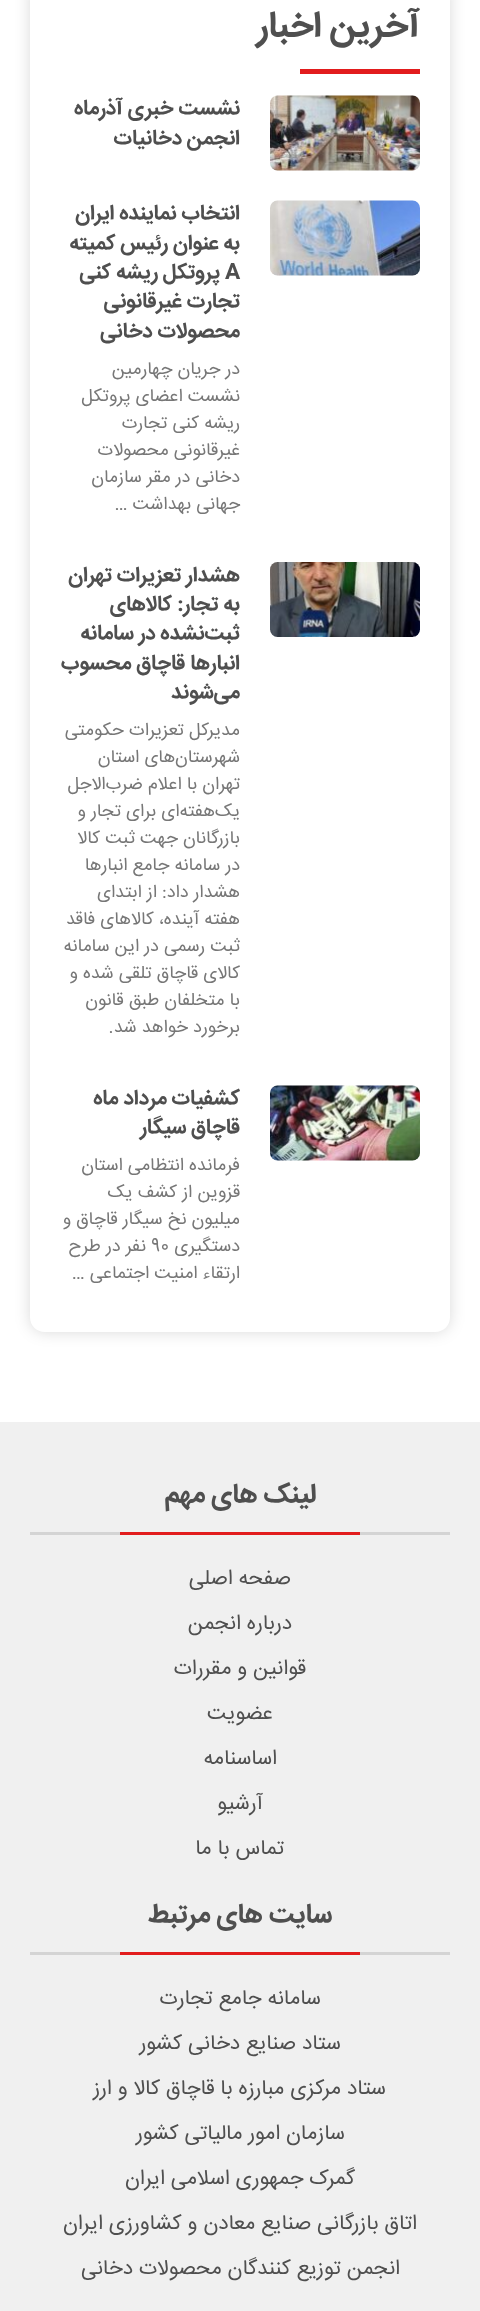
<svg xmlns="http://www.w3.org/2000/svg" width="480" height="2311">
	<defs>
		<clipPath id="clip1"><path d="M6 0H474V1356H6ZM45-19H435C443.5-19 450-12.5 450-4V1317C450 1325.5 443.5 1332 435 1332H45C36.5 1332 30 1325.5 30 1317V-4C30-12.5 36.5-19 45-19Z" clip-rule="evenodd" /></clipPath>
	</defs>
	<rect width="100%" height="100%" fill="#FFFFFF" />
	<g clip-path="url(#clip1)">
		<rect x="30" y="-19" width="420" height="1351" rx="15" fill="#000000" fill-opacity="0.15" filter="blur(7.5px)" />
	</g>
	<text x="420" y="36" font-family="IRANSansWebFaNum" font-size="36" font-weight="700" direction="rtl" fill="#4F4F4F">آخرین اخبار</text>
	<rect x="300" y="69" width="120" height="5" fill="#E21C1D" />
	<image x="270" y="95" width="150" height="76" href="assets/img1.png" />
	<g font-family="IRANSansWebFaNum" font-size="21" font-weight="700" direction="rtl" fill="#4F4F4F">
		<text x="240" y="114">نشست خبری آذرماه</text>
		<text x="240" y="144">انجمن دخانیات</text>
	</g>
	<image x="270" y="200" width="150" height="76" href="assets/img2.png" />
	<g font-family="IRANSansWebFaNum" font-size="21" font-weight="700" direction="rtl" fill="#4F4F4F">
		<text x="240" y="219">انتخاب نماینده ایران</text>
		<text x="240" y="249">به عنوان رئیس کمیته</text>
	</g>
	<text x="225" y="278" font-family="IRANSansWebFaNum" font-size="21" font-weight="700" fill="#4F4F4F">A</text>
	<g font-family="IRANSansWebFaNum" font-size="21" font-weight="700" direction="rtl" fill="#4F4F4F">
		<text x="220" y="278">پروتکل ریشه کنی</text>
		<text x="240" y="307">تجارت غیرقانونی</text>
		<text x="240" y="337">محصولات دخانی</text>
	</g>
	<g font-family="IRANSansWebFaNum" font-size="18" direction="rtl" fill="#777777">
		<text x="240" y="374">در جریان چهارمین</text>
		<text x="240" y="401">نشست اعضای پروتکل</text>
		<text x="240" y="428">ریشه کنی تجارت</text>
		<text x="240" y="455">غیرقانونی محصولات</text>
		<text x="240" y="482">دخانی در مقر سازمان</text>
		<text x="240" y="509">جهانی بهداشت …</text>
	</g>
	<image x="270" y="562" width="150" height="75" href="assets/img3.png" />
	<g font-family="IRANSansWebFaNum" font-size="21" font-weight="700" direction="rtl" fill="#4F4F4F">
		<text x="240" y="581">هشدار تعزیرات تهران</text>
		<text x="240" y="610">به تجار: کالاهای</text>
		<text x="240" y="639">ثبت‌نشده در سامانه</text>
		<text x="240" y="669">انبارها قاچاق محسوب</text>
		<text x="240" y="698">می‌شوند</text>
	</g>
	<g font-family="IRANSansWebFaNum" font-size="18" direction="rtl" fill="#777777">
		<text x="240" y="735">مدیرکل تعزیرات حکومتی</text>
		<text x="240" y="762">شهرستان‌های استان</text>
		<text x="240" y="789">تهران با اعلام ضرب‌الاجل</text>
		<text x="240" y="816">یک‌هفته‌ای برای تجار و</text>
		<text x="240" y="843">بازرگانان جهت ثبت کالا</text>
		<text x="240" y="870">در سامانه جامع انبارها</text>
		<text x="240" y="897">هشدار داد: از ابتدای</text>
		<text x="240" y="924">هفته آینده، کالاهای فاقد</text>
		<text x="240" y="951">ثبت رسمی در این سامانه</text>
		<text x="240" y="978">کالای قاچاق تلقی شده و</text>
		<text x="240" y="1005">با متخلفان طبق قانون</text>
		<text x="240" y="1032">برخورد خواهد شد.</text>
	</g>
	<image x="270" y="1085" width="150" height="76" href="assets/img4.png" />
	<g font-family="IRANSansWebFaNum" font-size="21" font-weight="700" direction="rtl" fill="#4F4F4F">
		<text x="240" y="1104">کشفیات مرداد ماه</text>
		<text x="240" y="1133">قاچاق سیگار</text>
	</g>
	<g font-family="IRANSansWebFaNum" font-size="18" direction="rtl" fill="#777777">
		<text x="240" y="1170">فرمانده انتظامی استان</text>
		<text x="240" y="1197">قزوین از کشف یک</text>
		<text x="240" y="1224">میلیون نخ سیگار قاچاق و</text>
		<text x="240" y="1251">دستگیری</text>
	</g>
	<text x="151" y="1251" font-family="IRANSansWebFaNum" font-size="18" fill="#777777">90</text>
	<g font-family="IRANSansWebFaNum" font-size="18" direction="rtl" fill="#777777">
		<text x="146" y="1251">نفر در طرح</text>
		<text x="240" y="1278">ارتقاء امنیت اجتماعی …</text>
	</g>
	<rect x="0" y="1422" width="480" height="889" fill="#F0F0F0" />
	<text x="316" y="1502" font-family="IRANSansWebFaNum" font-size="27" font-weight="700" direction="rtl" fill="#4F4F4F">لینک های مهم</text>
	<rect x="30" y="1532" width="420" height="3" fill="#D4D4D4" />
	<rect x="120" y="1532" width="240" height="3" fill="#E21C1D" />
	<g font-family="IRANSansWebFaNum" font-size="21" direction="rtl" fill="#4F4F4F">
		<text x="291" y="1584">صفحه اصلی</text>
		<text x="292" y="1629">درباره انجمن</text>
		<text x="306" y="1674">قوانین و مقررات</text>
		<text x="273" y="1719">عضویت</text>
		<text x="277" y="1764">اساسنامه</text>
		<text x="263" y="1809">آرشیو</text>
		<text x="284" y="1854">تماس با ما</text>
	</g>
	<text x="332" y="1922" font-family="IRANSansWebFaNum" font-size="27" font-weight="700" direction="rtl" fill="#4F4F4F">سایت های مرتبط</text>
	<rect x="30" y="1952" width="420" height="3" fill="#D4D4D4" />
	<rect x="120" y="1952" width="240" height="3" fill="#E21C1D" />
	<g font-family="IRANSansWebFaNum" font-size="21" direction="rtl" fill="#4F4F4F">
		<text x="321" y="2004">سامانه جامع تجارت</text>
		<text x="341" y="2049">ستاد صنایع دخانی کشور</text>
		<text x="386" y="2094">ستاد مرکزی مبارزه با قاچاق کالا و ارز</text>
		<text x="345" y="2139">سازمان امور مالیاتی کشور</text>
		<text x="355" y="2184">گمرک جمهوری اسلامی ایران</text>
		<text x="417" y="2229">اتاق بازرگانی صنایع معادن و کشاورزی ایران</text>
		<text x="400" y="2274">انجمن توزیع کنندگان محصولات دخانی</text>
	</g>
</svg>
